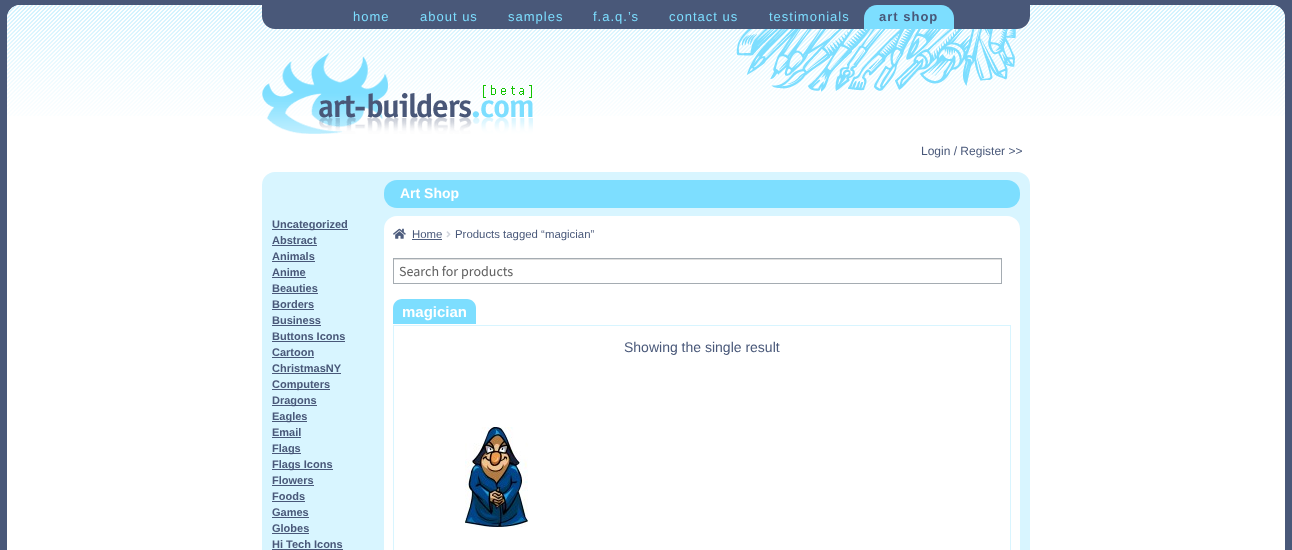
<svg xmlns="http://www.w3.org/2000/svg" width="1292" height="550">
	<rect width="100%" height="100%" fill="#FFFFFF" />
	<rect x="0" y="0" width="1292" height="5" fill="#495879" />
	<rect x="0" y="0" width="7" height="550" fill="#495879" />
	<rect x="7" y="5" width="1278" height="13" fill="#495879" />
	<path d="M20 5H1272C1279 5 1285 11 1285 18V163H7V18C7 11 13 5 20 5Z" fill="#FFFFFF" />
	<image x="7" y="5" width="1278" height="111" href="assets/img1.png" />
	<path d="M262 5H1030V16C1030 23 1024 29 1017 29H275C268 29 262 23 262 16Z" fill="#495879" />
	<g font-family="Liberation Sans" font-size="13" letter-spacing="1" fill="#7DDEFF">
		<text x="353" y="21">home</text>
		<text x="420" y="21">about us</text>
		<text x="508" y="21">samples</text>
		<text x="593" y="21">f.a.q.’s</text>
		<text x="669" y="21">contact us</text>
		<text x="769" y="21">testimonials</text>
	</g>
	<path d="M877 5H941C948 5 954 11 954 18V29H864V18C864 11 870 5 877 5Z" fill="#7DDEFF" />
	<text x="879" y="21" font-family="Liberation Sans" font-size="13" font-weight="700" letter-spacing="1" fill="#495879">art shop</text>
	<image x="262" y="53" width="271" height="81" href="assets/img2.png" />
	<image x="736" y="29" width="280" height="63" href="assets/img3.png" />
	<text x="921" y="155" font-family="Liberation Sans" font-size="12" fill="#495879">Login / Register &gt;&gt;</text>
	<rect x="262" y="172" width="768" height="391" rx="13" fill="#D8F5FF" />
	<rect x="272" y="229" width="76" height="1" fill="#495879" />
	<g font-family="Liberation Sans" font-size="11" font-weight="700" fill="#495879">
		<text x="272" y="228">Uncategorized</text>
		<text x="272" y="244">Abstract</text>
	</g>
	<rect x="272" y="245" width="45" height="1" fill="#495879" />
	<text x="272" y="260" font-family="Liberation Sans" font-size="11" font-weight="700" fill="#495879">Animals</text>
	<rect x="272" y="261" width="43" height="1" fill="#495879" />
	<text x="272" y="276" font-family="Liberation Sans" font-size="11" font-weight="700" fill="#495879">Anime</text>
	<rect x="272" y="277" width="34" height="1" fill="#495879" />
	<text x="272" y="292" font-family="Liberation Sans" font-size="11" font-weight="700" fill="#495879">Beauties</text>
	<rect x="272" y="293" width="46" height="1" fill="#495879" />
	<text x="272" y="308" font-family="Liberation Sans" font-size="11" font-weight="700" fill="#495879">Borders</text>
	<rect x="272" y="309" width="42" height="1" fill="#495879" />
	<text x="272" y="324" font-family="Liberation Sans" font-size="11" font-weight="700" fill="#495879">Business</text>
	<rect x="272" y="325" width="49" height="1" fill="#495879" />
	<text x="272" y="340" font-family="Liberation Sans" font-size="11" font-weight="700" fill="#495879">Buttons Icons</text>
	<rect x="272" y="341" width="73" height="1" fill="#495879" />
	<text x="272" y="356" font-family="Liberation Sans" font-size="11" font-weight="700" fill="#495879">Cartoon</text>
	<rect x="272" y="357" width="42" height="1" fill="#495879" />
	<text x="272" y="372" font-family="Liberation Sans" font-size="11" font-weight="700" fill="#495879">ChristmasNY</text>
	<rect x="272" y="373" width="69" height="1" fill="#495879" />
	<rect x="272" y="389" width="58" height="1" fill="#495879" />
	<text x="272" y="388" font-family="Liberation Sans" font-size="11" font-weight="700" fill="#495879">Computers</text>
	<rect x="272" y="405" width="45" height="1" fill="#495879" />
	<text x="272" y="404" font-family="Liberation Sans" font-size="11" font-weight="700" fill="#495879">Dragons</text>
	<rect x="272" y="421" width="35" height="1" fill="#495879" />
	<g font-family="Liberation Sans" font-size="11" font-weight="700" fill="#495879">
		<text x="272" y="420">Eagles</text>
		<text x="272" y="436">Email</text>
	</g>
	<rect x="272" y="437" width="29" height="1" fill="#495879" />
	<rect x="272" y="453" width="29" height="1" fill="#495879" />
	<text x="272" y="452" font-family="Liberation Sans" font-size="11" font-weight="700" fill="#495879">Flags</text>
	<rect x="272" y="469" width="61" height="1" fill="#495879" />
	<g font-family="Liberation Sans" font-size="11" font-weight="700" fill="#495879">
		<text x="272" y="468">Flags Icons</text>
		<text x="272" y="484">Flowers</text>
	</g>
	<rect x="272" y="485" width="42" height="1" fill="#495879" />
	<text x="272" y="500" font-family="Liberation Sans" font-size="11" font-weight="700" fill="#495879">Foods</text>
	<rect x="272" y="501" width="33" height="1" fill="#495879" />
	<text x="272" y="516" font-family="Liberation Sans" font-size="11" font-weight="700" fill="#495879">Games</text>
	<rect x="272" y="517" width="37" height="1" fill="#495879" />
	<text x="272" y="532" font-family="Liberation Sans" font-size="11" font-weight="700" fill="#495879">Globes</text>
	<rect x="272" y="533" width="37" height="1" fill="#495879" />
	<text x="272" y="548" font-family="Liberation Sans" font-size="11" font-weight="700" fill="#495879">Hi Tech Icons</text>
	<rect x="272" y="549" width="71" height="1" fill="#495879" />
	<rect x="384" y="180" width="636" height="28" rx="13" fill="#7DDEFF" />
	<text x="400" y="198" font-family="Liberation Sans" font-size="14" font-weight="700" fill="#FFFFFF">Art Shop</text>
	<rect x="384" y="216" width="636" height="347" rx="13" fill="#FFFFFF" />
	<image x="393" y="228" width="13" height="11" href="assets/img4.png" />
	<text x="412" y="238" font-family="Liberation Sans" font-size="11.4" fill="#495879">Home</text>
	<rect x="412" y="239" width="30" height="1" fill="#4E5D7E" />
	<image x="446" y="231" width="5" height="7" href="assets/img5.png" />
	<text x="455" y="238" font-family="Liberation Sans" font-size="11.4" fill="#495879">Products tagged “magician”</text>
	<rect x="394" y="259" width="607" height="1" fill="#DFDFDF" />
	<rect x="393.5" y="258.5" width="608" height="25" fill="none" stroke="#A5ACB2" />
	<text x="399" y="276" font-family="Source Sans Pro" font-size="14" fill="#616161">Search for products</text>
	<path d="M402 299H467C472 299 476 303 476 308V324H393V308C393 303 397 299 402 299Z" fill="#7DDEFF" />
	<text x="402" y="317" font-family="Liberation Sans" font-size="15" font-weight="700" fill="#FFFFFF">magician</text>
	<rect x="393.5" y="325.5" width="617" height="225" fill="none" stroke="#D8F5FF" />
	<text x="624" y="352" font-family="Liberation Sans" font-size="14" fill="#495879">Showing the single result</text>
	<image x="465" y="427" width="63" height="100" href="assets/img6.png" />
	<rect x="1285" y="0" width="7" height="550" fill="#495879" />
</svg>
